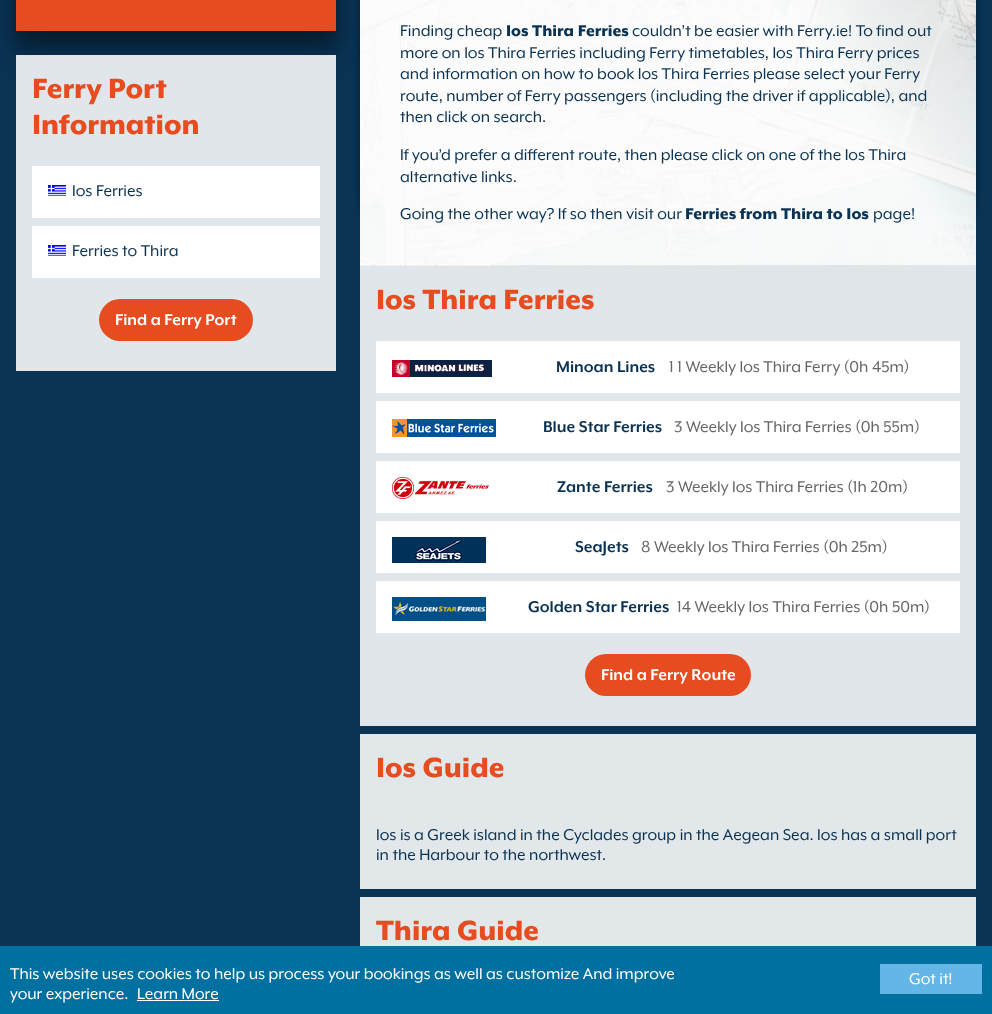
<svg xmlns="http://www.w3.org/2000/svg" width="992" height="1014">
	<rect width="100%" height="100%" fill="#0A3354" />
	<rect x="16" y="-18" width="320" height="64" fill="#000000" fill-opacity="0.22" filter="blur(6px)" />
	<rect x="16" y="-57" width="320" height="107" fill="#000000" fill-opacity="0.3" filter="blur(19px)" />
	<rect x="16" y="0" width="320" height="31" fill="#E74C20" />
	<rect x="16" y="55" width="320" height="316" fill="#FFFFFF" fill-opacity="0.88" />
	<g font-family="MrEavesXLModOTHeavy" font-size="32" font-weight="900" fill="#E74C20">
		<text x="32" y="98">Ferry Port</text>
		<text x="32" y="134">Information</text>
	</g>
	<rect x="32" y="166" width="288" height="52" fill="#FFFFFF" />
	<image x="48" y="185" width="18" height="11" href="assets/img1.png" />
	<text x="72" y="196" font-family="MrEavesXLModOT" font-size="18" fill="#0A3252">Ios Ferries</text>
	<rect x="32" y="226" width="288" height="52" fill="#FFFFFF" />
	<image x="48" y="245" width="18" height="11" href="assets/img1.png" />
	<text x="72" y="256" font-family="MrEavesXLModOT" font-size="18" fill="#0A3252">Ferries to Thira</text>
	<rect x="99" y="299" width="154" height="42" rx="21" fill="#E74C20" />
	<text x="115" y="325" font-family="MrEavesXLModOT" font-size="18" font-weight="700" fill="#FFFFFF">Find a Ferry Port</text>
	<rect x="360" y="-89" width="616" height="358" rx="80" fill="#000000" fill-opacity="0.23" filter="blur(3px)" />
	<rect x="360" y="-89" width="616" height="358" rx="80" fill="#000000" fill-opacity="0.16" filter="blur(3px)" />
	<image x="360" y="0" width="616" height="266" href="assets/img2.png" />
	<text x="400" y="36" font-family="MrEavesXLModOT" font-size="18" fill="#0A3252">Finding cheap</text>
	<text x="506" y="36" font-family="MrEavesXLModOTHeavy" font-size="18" font-weight="900" fill="#0A3252">Ios Thira Ferries</text>
	<g font-family="MrEavesXLModOT" font-size="18" fill="#0A3252">
		<text x="632" y="36">couldn’t be easier with Ferry.ie! To find out</text>
		<text x="400" y="58">more on Ios Thira Ferries including Ferry timetables, Ios Thira Ferry prices</text>
		<text x="400" y="79">and information on how to book Ios Thira Ferries please select your Ferry</text>
		<text x="400" y="101">route, number of Ferry passengers (including the driver if applicable), and</text>
		<text x="400" y="122">then click on search.</text>
		<text x="400" y="160">If you’d prefer a different route, then please click on one of the Ios Thira</text>
		<text x="400" y="182">alternative links.</text>
		<text x="400" y="219">Going the other way? If so then visit our</text>
	</g>
	<text x="685" y="219" font-family="MrEavesXLModOTHeavy" font-size="18" font-weight="900" fill="#0A3252">Ferries from Thira to Ios</text>
	<text x="873" y="219" font-family="MrEavesXLModOT" font-size="18" fill="#0A3252">page!</text>
	<rect x="360" y="266" width="616" height="460" fill="#FFFFFF" fill-opacity="0.88" />
	<text x="376" y="309" font-family="MrEavesXLModOTHeavy" font-size="32" font-weight="900" fill="#E74C20">Ios Thira Ferries</text>
	<rect x="376" y="341" width="584" height="52" fill="#FFFFFF" />
	<image x="392" y="360" width="100" height="17" href="assets/img3.png" />
	<text x="556" y="372" font-family="MrEavesXLModOT" font-size="18" font-weight="700" fill="#0A3252">Minoan Lines</text>
	<text x="669" y="372" font-family="MrEavesXLModOT" font-size="18" fill="#666666">1 1 Weekly Ios Thira Ferry (0h 45m)</text>
	<rect x="376" y="401" width="584" height="52" fill="#FFFFFF" />
	<image x="392" y="419" width="104" height="18" href="assets/img4.png" />
	<text x="543" y="432" font-family="MrEavesXLModOT" font-size="18" font-weight="700" fill="#0A3252">Blue Star Ferries</text>
	<text x="674" y="432" font-family="MrEavesXLModOT" font-size="18" fill="#666666">3 Weekly Ios Thira Ferries (0h 55m)</text>
	<rect x="376" y="461" width="584" height="52" fill="#FFFFFF" />
	<image x="392" y="477" width="97" height="22" href="assets/img5.png" />
	<text x="557" y="492" font-family="MrEavesXLModOT" font-size="18" font-weight="700" fill="#0A3252">Zante Ferries</text>
	<text x="666" y="492" font-family="MrEavesXLModOT" font-size="18" fill="#666666">3 Weekly Ios Thira Ferries (1h 20m)</text>
	<rect x="376" y="521" width="584" height="52" fill="#FFFFFF" />
	<image x="392" y="537" width="94" height="26" href="assets/img6.png" />
	<text x="575" y="552" font-family="MrEavesXLModOT" font-size="18" font-weight="700" fill="#0A3252">SeaJets</text>
	<text x="641" y="552" font-family="MrEavesXLModOT" font-size="18" fill="#666666">8 Weekly Ios Thira Ferries (0h 25m)</text>
	<rect x="376" y="581" width="584" height="52" fill="#FFFFFF" />
	<image x="392" y="597" width="94" height="24" href="assets/img7.png" />
	<text x="528" y="612" font-family="MrEavesXLModOT" font-size="18" font-weight="700" fill="#0A3252">Golden Star Ferries</text>
	<text x="677" y="612" font-family="MrEavesXLModOT" font-size="18" fill="#666666">14 Weekly Ios Thira Ferries (0h 50m)</text>
	<rect x="585" y="654" width="166" height="42" rx="21" fill="#E74C20" />
	<text x="601" y="680" font-family="MrEavesXLModOT" font-size="18" font-weight="700" fill="#FFFFFF">Find a Ferry Route</text>
	<rect x="360" y="734" width="616" height="155" fill="#E2E7EA" />
	<text x="376" y="777" font-family="MrEavesXLModOTHeavy" font-size="32" font-weight="900" fill="#E74C20">Ios Guide</text>
	<g font-family="MrEavesXLModOT" font-size="18" fill="#0A3252">
		<text x="376" y="840">Ios is a Greek island in the Cyclades group in the Aegean Sea. Ios has a small port</text>
		<text x="376" y="860">in the Harbour to the northwest.</text>
	</g>
	<rect x="360" y="897" width="616" height="49" fill="#E2E7EA" />
	<text x="376" y="940" font-family="MrEavesXLModOTHeavy" font-size="32" font-weight="900" fill="#E74C20">Thira Guide</text>
	<rect x="0" y="946" width="992" height="68" fill="#0070A0" />
	<g font-family="MrEavesXLModOT" font-size="18" fill="#FFFFFF">
		<text x="10" y="979">This website uses cookies to help us process your bookings as well as customize And improve</text>
		<text x="10" y="999">your experience.</text>
		<text x="137" y="999">Learn More</text>
	</g>
	<rect x="137" y="1000" width="82" height="1" fill="#FFFFFF" />
	<rect x="880" y="964" width="102" height="30" fill="#64B6E6" />
	<text x="909" y="984" font-family="MrEavesXLModOT" font-size="18" fill="#FFFFFF">Got it!</text>
</svg>
